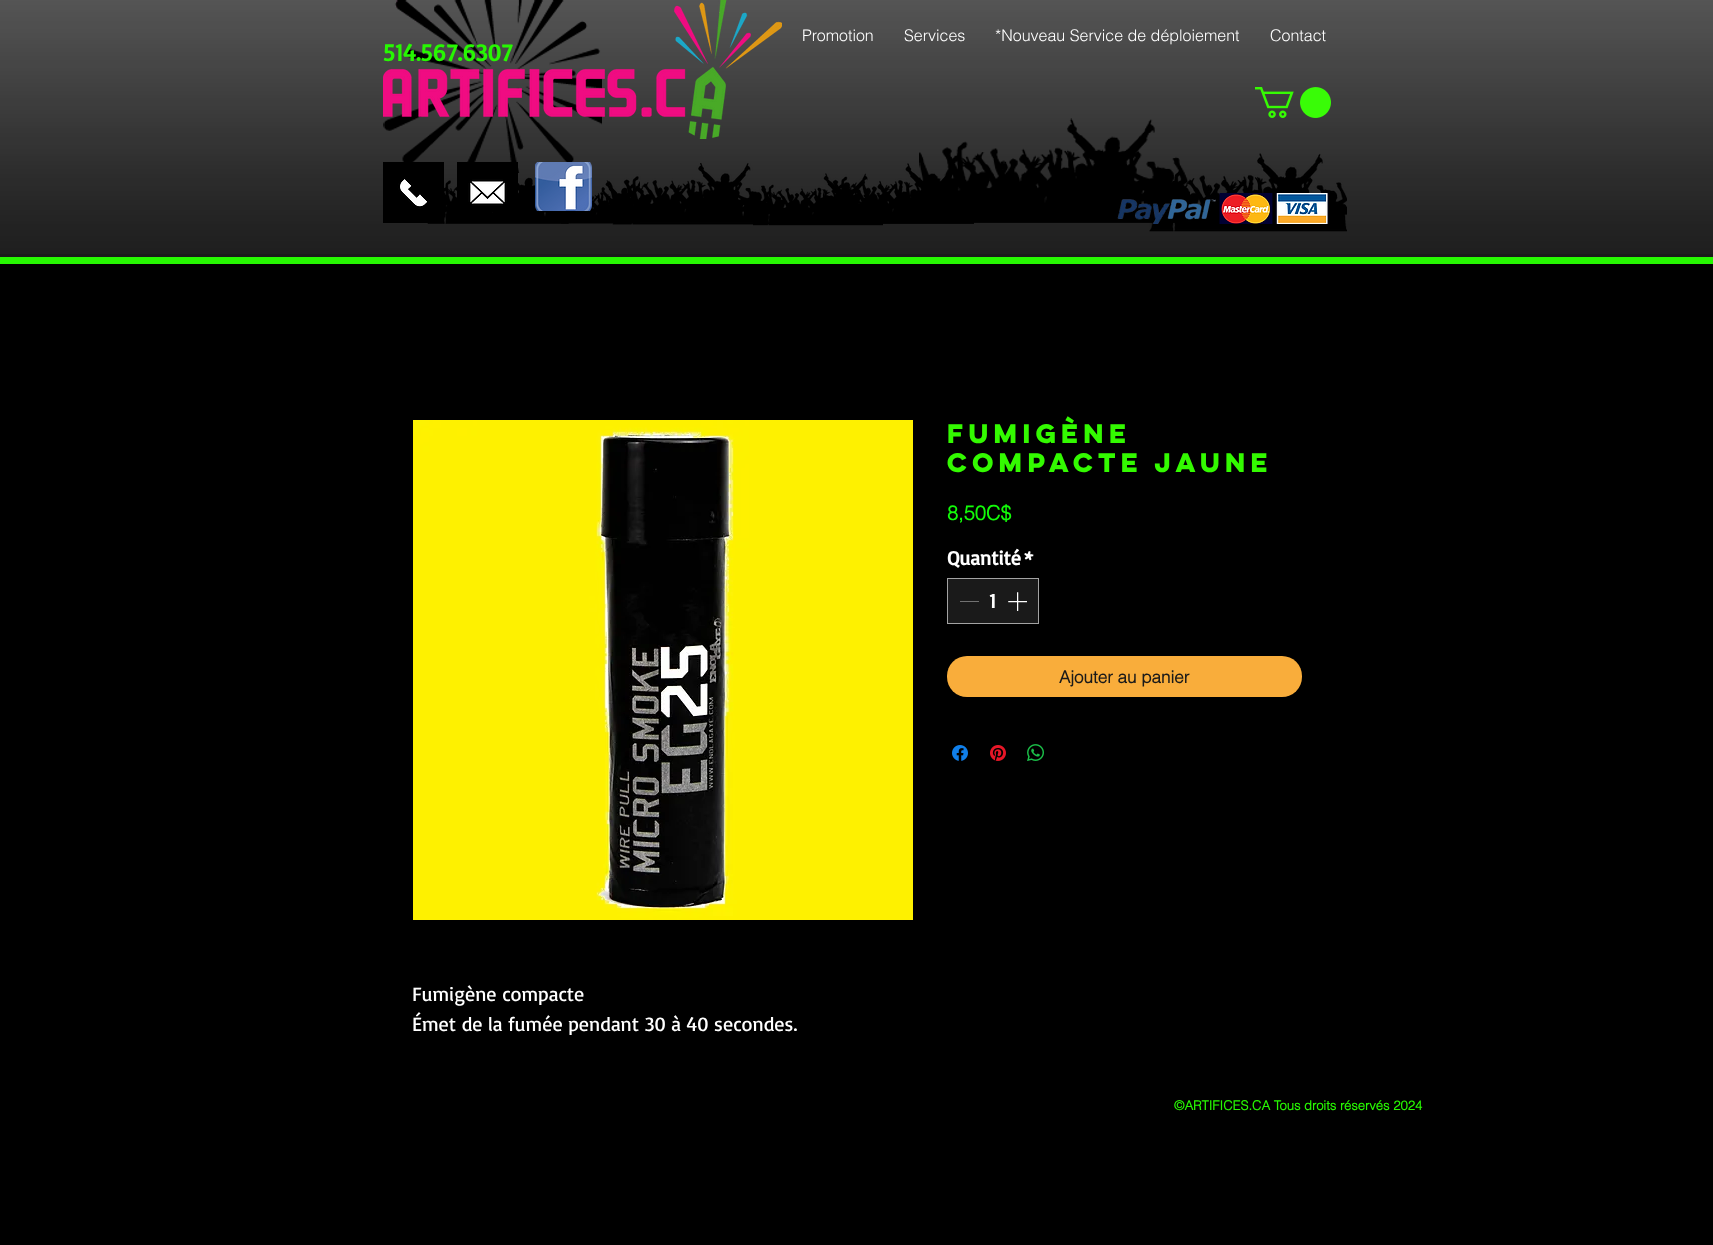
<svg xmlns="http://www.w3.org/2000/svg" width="1713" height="1245">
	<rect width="100%" height="100%" fill="#000000" />
	<rect x="0" y="0" width="1713" height="257" fill="#1A1A1A" />
	<image x="0" y="0" width="1713" height="254" href="assets/img1.png" />
	<rect x="0" y="257" width="1713" height="7" fill="#27F702" />
	<image x="383" y="0" width="219" height="173" href="assets/img2.png" />
	<image x="383" y="0" width="399" height="139" href="assets/img3.png" />
	<g font-family="helvetica" font-size="16" font-weight="300" fill="#FFFFFF">
		<text x="802" y="41">Promotion</text>
		<text x="904" y="41">Services</text>
		<text x="995" y="41">*Nouveau Service de déploiement</text>
		<text x="1270" y="41">Contact</text>
	</g>
	<text x="383" y="61" font-family="Basic" font-size="24" font-weight="700" fill="#27F702">514.567.6307</text>
	<image x="1255" y="87" width="76" height="31" href="assets/img4.png" />
	<image x="561" y="180" width="79" height="44" href="assets/img15.png" />
	<image x="427" y="177" width="150" height="47" href="assets/img14.png" />
	<image x="383" y="162" width="61" height="61" href="assets/img5.png" />
	<image x="457" y="162" width="61" height="50" href="assets/img6.png" />
	<image x="535" y="163" width="4" height="5" href="assets/img10.png" />
	<image x="535" y="162" width="57" height="49" href="assets/img7.png" />
	<image x="1149" y="153" width="198" height="79" href="assets/img9.png" />
	<image x="823" y="163" width="151" height="61" href="assets/img13.png" />
	<image x="919" y="118" width="271" height="105" href="assets/img8.png" />
	<image x="601" y="163" width="180" height="62" href="assets/img11.png" />
	<image x="753" y="173" width="130" height="53" href="assets/img12.png" />
	<image x="1117" y="193" width="212" height="31" href="assets/img16.png" />
	<g font-family="'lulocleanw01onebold'" font-size="24" font-weight="700" fill="#33FA00">
		<text x="947" y="443">FUMIGÈNE</text>
		<text x="947" y="472">COMPACTE JAUNE</text>
	</g>
	<text x="947" y="520" font-family="helvetica" font-size="20" font-weight="700" fill="#12FB08">8,50C$</text>
	<g font-family="Basic" font-size="20" font-weight="700" fill="#FFFFFF">
		<text x="947" y="565">Quantité</text>
		<text x="1024" y="565">*</text>
	</g>
	<rect x="947.5" y="578.5" width="91" height="45" fill="#1A1A1A" stroke="#A3A3A3" />
	<rect x="960" y="601" width="19" height="1" fill="#717171" />
	<text x="989" y="608" font-family="Basic" font-size="20" font-weight="700" fill="#FFFFFF">1</text>
	<image x="1008" y="592" width="19" height="19" href="assets/img17.png" />
	<rect x="947" y="656" width="355" height="41" rx="20" fill="#F9AD3B" />
	<text x="1059" y="683" font-family="helvetica" font-size="17" font-weight="700" fill="#1A1A1A">Ajouter au panier</text>
	<image x="952" y="745" width="16" height="16" href="assets/img18.png" />
	<image x="990" y="745" width="16" height="16" href="assets/img19.png" />
	<image x="1027" y="744" width="17" height="17" href="assets/img20.png" />
	<image x="413" y="420" width="500" height="500" href="assets/img21.png" />
	<g font-family="Basic" font-size="20" fill="#FFFFFF">
		<text x="412" y="1001">Fumigène compacte</text>
		<text x="412" y="1031">Émet de la fumée pendant 30 à 40 secondes.</text>
	</g>
	<text x="1174" y="1110" font-family="helvetica" font-size="13" font-weight="700" fill="#27F702">©ARTIFICES.CA Tous droits réservés 2024</text>
</svg>
